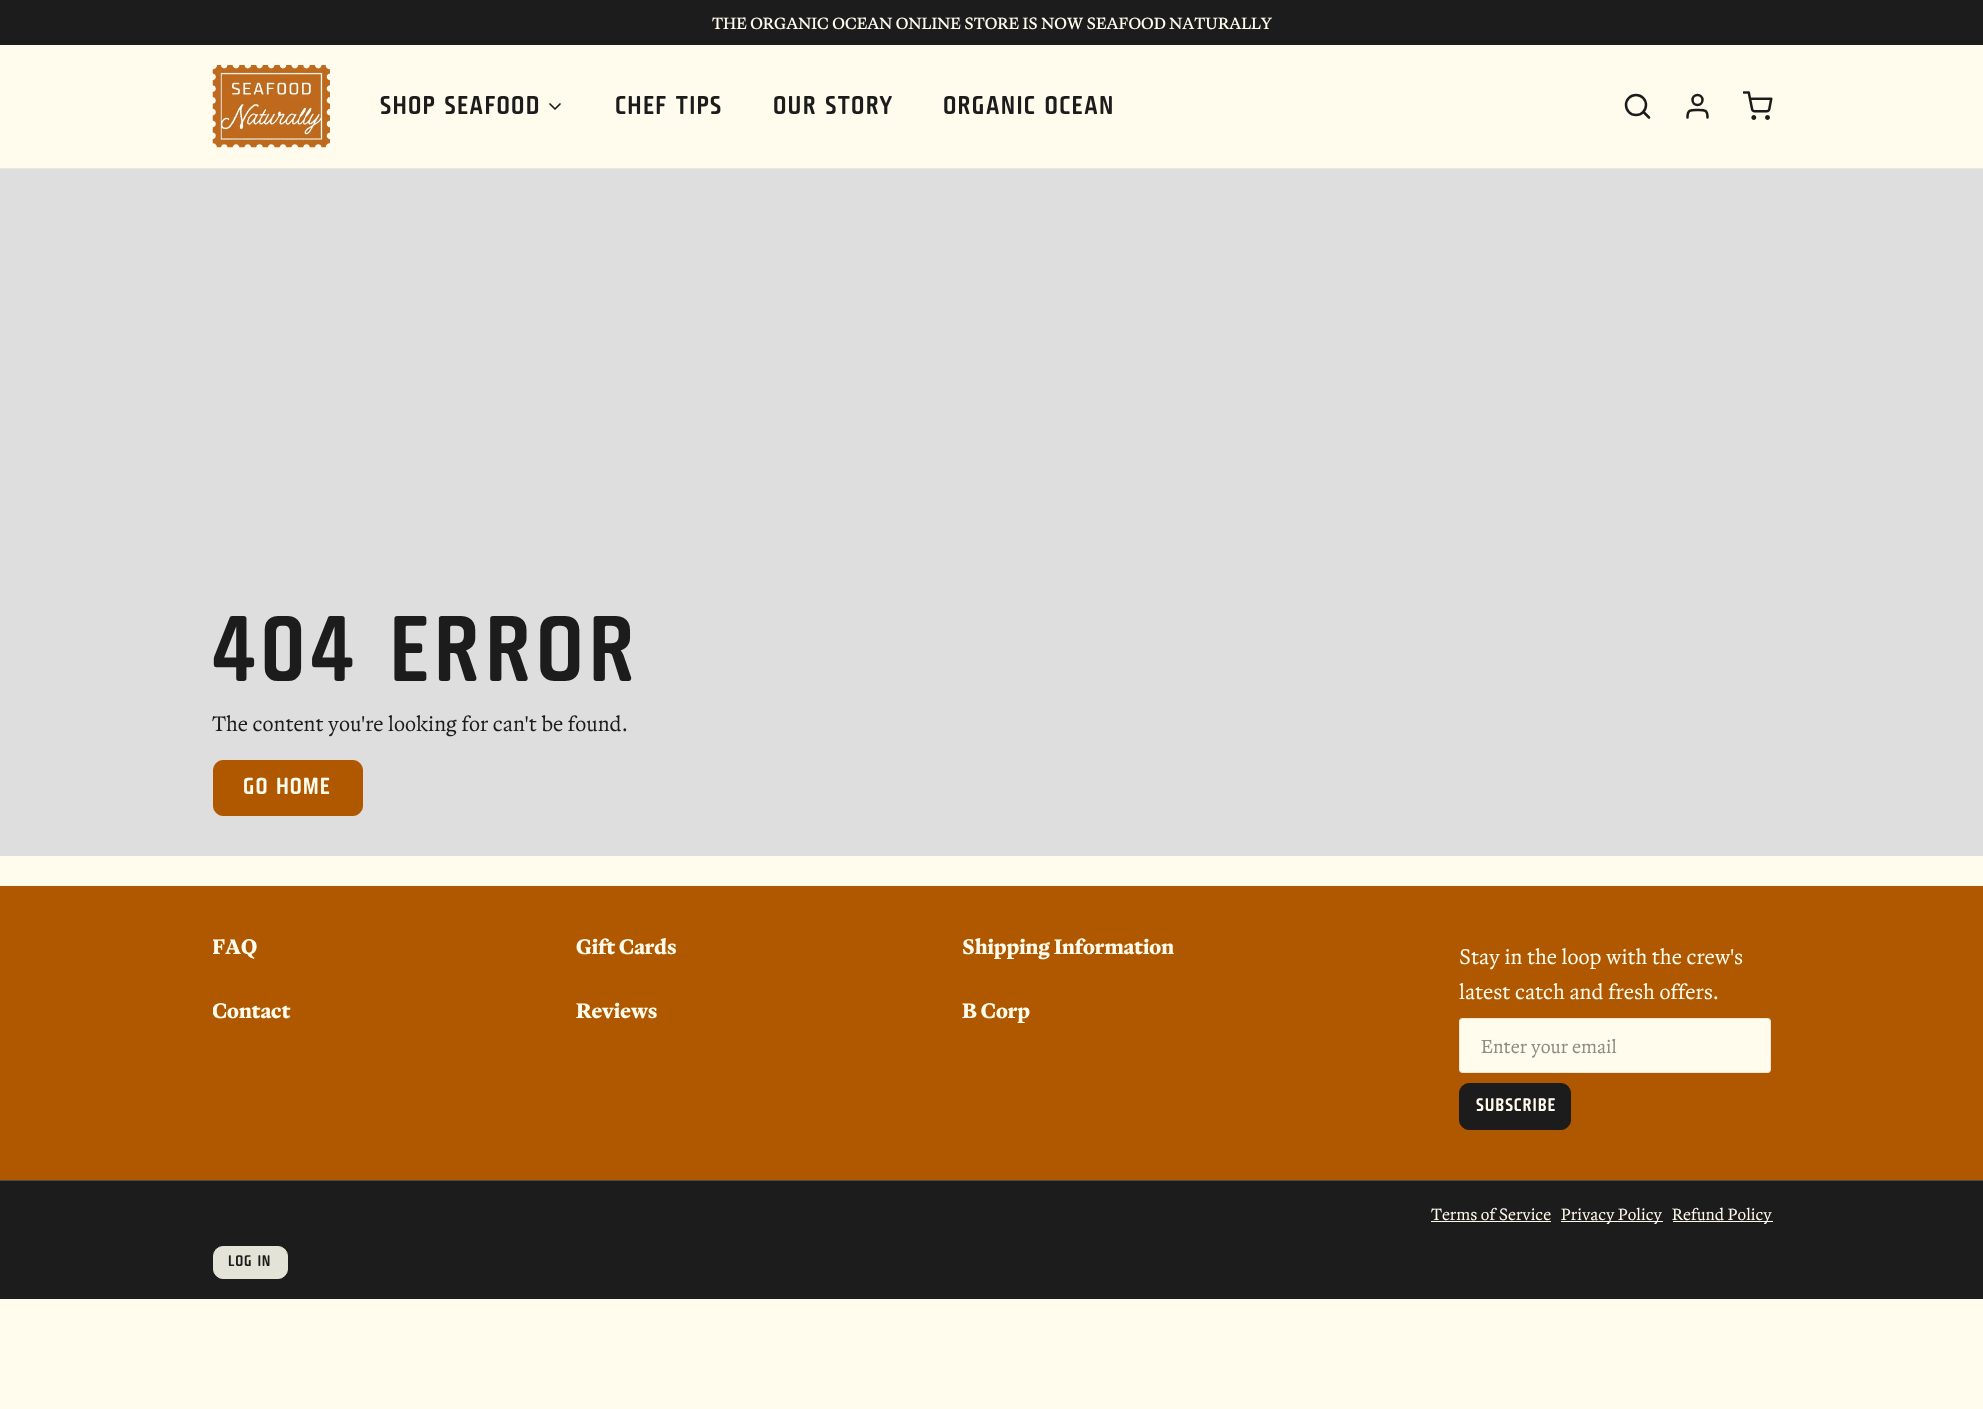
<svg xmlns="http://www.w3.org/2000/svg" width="1983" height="1409">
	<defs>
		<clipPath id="clip1"><rect x="213" y="888" width="1560" height="292" /></clipPath>
	</defs>
	<rect width="100%" height="100%" fill="#FFFCEE" />
	<rect x="0" y="0" width="1983" height="45" fill="#1D1C1C" />
	<text x="712" y="29" font-family="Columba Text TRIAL" font-size="17.5" font-weight="500" fill="#FFFCEE">THE ORGANIC OCEAN ONLINE STORE IS NOW SEAFOOD NATURALLY</text>
	<rect x="0" y="168" width="1983" height="1" fill="#EAE8D5" />
	<image x="212" y="65" width="118" height="83" href="assets/img1.png" />
	<text x="380" y="114" font-family="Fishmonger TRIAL" font-size="25" font-weight="600" letter-spacing="1.25" fill="#1D1C1C">SHOP SEAFOOD</text>
	<path d="M550 104L555 109L560 104" fill="none" stroke="#1D1C1C" stroke-width="1.7" stroke-linecap="round" stroke-linejoin="round" />
	<g font-family="Fishmonger TRIAL" font-size="25" font-weight="600" letter-spacing="1.25" fill="#1D1C1C">
		<text x="615" y="114">CHEF TIPS</text>
		<text x="773" y="114">OUR STORY</text>
		<text x="943" y="114">ORGANIC OCEAN</text>
	</g>
	<circle cx="1636" cy="105" r="10" fill="none" stroke="#1D1C1C" stroke-width="2.5" />
	<path d="M1649 117.5L1643.5 112" fill="none" stroke="#1D1C1C" stroke-width="2.5" stroke-linecap="round" stroke-linejoin="round" />
	<path d="M1707.5 117.5C1707.5 109.5 1704.5 110 1697.5 110C1690.5 110 1687.5 109.5 1687.5 117.5" fill="none" stroke="#1D1C1C" stroke-width="2.5" stroke-linecap="round" stroke-linejoin="round" />
	<circle cx="1697.5" cy="100" r="5" fill="none" stroke="#1D1C1C" stroke-width="2.5" />
	<image x="1743" y="91" width="30" height="29" href="assets/img2.png" />
	<rect x="0" y="169" width="1983" height="687" fill="#DEDEDE" />
	<text x="212" y="681" font-family="Fishmonger TRIAL" font-size="90" font-weight="600" letter-spacing="4.5" fill="#1D1C1C">404 ERROR</text>
	<text x="212" y="731" font-family="Columba Text TRIAL" font-size="22.5" fill="#1D1C1C">The content you're looking for can't be found.</text>
	<rect x="213.5" y="760.5" width="149" height="55" rx="9.5" fill="#AF5800" stroke="#AF5800" />
	<text x="243" y="794" font-family="Fishmonger TRIAL" font-size="22.5" font-weight="600" letter-spacing="1" fill="#FFFCEE">GO HOME</text>
	<rect x="0" y="886" width="1983" height="294" fill="#AF5800" />
	<g clip-path="url(#clip1)">
		<g font-family="Columba Text TRIAL" font-size="22.5" font-weight="800" fill="#FFFCEE">
			<text x="212" y="954">FAQ</text>
			<text x="212" y="1018">Contact</text>
		</g>
	</g>
	<g font-family="Columba Text TRIAL" font-size="22.5" font-weight="800" fill="#FFFCEE">
		<text x="576" y="954">Gift Cards</text>
		<text x="576" y="1018">Reviews</text>
		<text x="962" y="954">Shipping Information</text>
		<text x="962" y="1018">B Corp</text>
	</g>
	<g font-family="Columba Text TRIAL" font-size="22.5" fill="#FFFCEE">
		<text x="1459" y="964">Stay in the loop with the crew's</text>
		<text x="1459" y="999">latest catch and fresh offers.</text>
	</g>
	<rect x="1459" y="1018" width="312" height="55" rx="4" fill="#FFFCEE" />
	<rect x="1459.5" y="1018.5" width="311" height="54" rx="3.5" fill="none" stroke="#B9B99B" stroke-opacity="0.3" />
	<text x="1481" y="1053" font-family="Columba Text TRIAL" font-size="20" fill="#8E8C85">Enter your email</text>
	<rect x="1459.5" y="1083.5" width="111" height="46" rx="9.5" fill="#1D1C1C" stroke="#1D1C1C" />
	<text x="1476" y="1111" font-family="Fishmonger TRIAL" font-size="17.5" font-weight="600" letter-spacing="0.9" fill="#FFFCEE">SUBSCRIBE</text>
	<rect x="0" y="1181" width="1983" height="118" fill="#1D1C1C" />
	<rect x="0" y="1180" width="1983" height="1" fill="#4C4B42" />
	<text x="1431" y="1220" font-family="Columba Text TRIAL" font-size="17.5" fill="#FFFCEE">Terms of Service</text>
	<rect x="1431" y="1221" width="120" height="1" fill="#FFFCEE" />
	<rect x="1561" y="1221" width="102" height="1" fill="#FFFCEE" />
	<text x="1561" y="1220" font-family="Columba Text TRIAL" font-size="17.5" fill="#FFFCEE">Privacy Policy</text>
	<rect x="1673" y="1221" width="100" height="1" fill="#FFFCEE" />
	<text x="1672" y="1220" font-family="Columba Text TRIAL" font-size="17.5" fill="#FFFCEE">Refund Policy</text>
	<rect x="213.5" y="1246.5" width="74" height="32" rx="9.5" fill="#E3E3D7" stroke="#E3E3D7" />
	<text x="228" y="1266" font-family="Fishmonger TRIAL" font-size="15" font-weight="600" letter-spacing="0.75" fill="#1D1C1C">LOG IN</text>
</svg>
